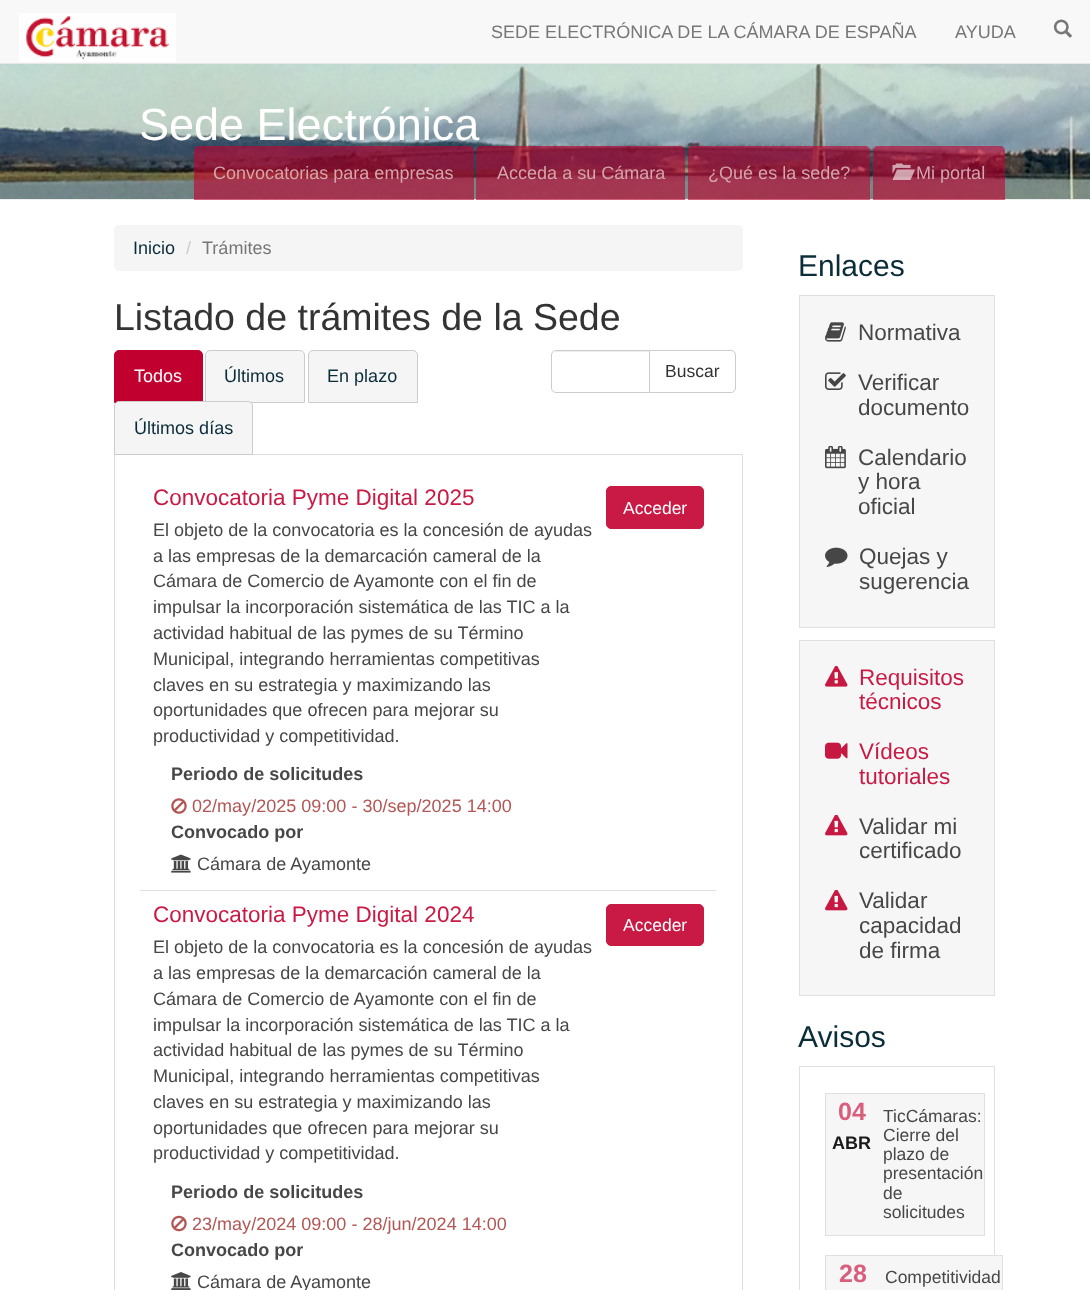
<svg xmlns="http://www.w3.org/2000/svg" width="1090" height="1290">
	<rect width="100%" height="100%" fill="#FFFFFF" />
	<rect x="0" y="0" width="1090" height="63" fill="#F8F8F8" />
	<rect x="0" y="63" width="1090" height="1" fill="#E7E7E7" />
	<image x="19" y="13" width="157" height="49" href="assets/img1.png" />
	<g font-family="Liberation Sans" font-size="18.05" fill="#777777">
		<text x="491" y="38">SEDE ELECTRÓNICA DE LA CÁMARA DE ESPAÑA</text>
		<text x="955" y="38">AYUDA</text>
	</g>
	<image x="1053" y="19" width="19" height="19" href="assets/img2.png" />
	<image x="0" y="64" width="1090" height="135" href="assets/img3.png" />
	<rect x="0" y="199" width="1090" height="1" fill="#EEEEEE" />
	<text x="139" y="140" font-family="Liberation Sans" font-size="45" fill="#FFFFFF">Sede Electrónica</text>
	<path d="M199 146H469C472 146 474 148 474 151V200H194V151C194 148 196 146 199 146Z" fill="#C2002F" fill-opacity="0.6" />
	<text x="213" y="179" font-family="Liberation Sans" font-size="18.05" fill="#D3A5AE">Convocatorias para empresas</text>
	<path d="M481 146H680C683 146 685 148 685 151V200H476V151C476 148 478 146 481 146Z" fill="#C2002F" fill-opacity="0.6" />
	<text x="497" y="179" font-family="Liberation Sans" font-size="18.05" fill="#D3A5AE">Acceda a su Cámara</text>
	<path d="M693 146H865C868 146 870 148 870 151V200H688V151C688 148 690 146 693 146Z" fill="#C2002F" fill-opacity="0.6" />
	<text x="708" y="179" font-family="Liberation Sans" font-size="18.05" fill="#D3A5AE">¿Qué es la sede?</text>
	<path d="M878 146H1000C1003 146 1005 148 1005 151V200H873V151C873 148 875 146 878 146Z" fill="#C2002F" fill-opacity="0.6" />
	<image x="892" y="163" width="23" height="17" href="assets/img4.png" />
	<text x="916" y="179" font-family="Liberation Sans" font-size="18.05" fill="#D3A5AE">Mi portal</text>
	<rect x="114" y="225" width="629" height="46" rx="5" fill="#F5F5F5" />
	<text x="133" y="254" font-family="Liberation Sans" font-size="18.05" fill="#0B2D39">Inicio</text>
	<text x="186" y="254" font-family="Liberation Sans" font-size="18.05" fill="#CCCCCC">/</text>
	<text x="202" y="254" font-family="Liberation Sans" font-size="18.05" fill="#777777">Trámites</text>
	<text x="114" y="330" font-family="Liberation Sans" font-size="37.5" fill="#333333">Listado de trámites de la Sede</text>
	<path d="M119 350.5H198C200.5 350.5 202.5 352.5 202.5 355V402.5H114.5V355C114.5 352.5 116.5 350.5 119 350.5Z" fill="#C2002F" stroke="#C2002F" />
	<text x="134" y="382" font-family="Liberation Sans" font-size="18.05" fill="#FFFFFF">Todos</text>
	<path d="M210 350.5H300C302.5 350.5 304.5 352.5 304.5 355V402.5H205.5V355C205.5 352.5 207.5 350.5 210 350.5Z" fill="#F5F5F5" stroke="#CCCCCC" />
	<text x="224" y="382" font-family="Liberation Sans" font-size="18.05" fill="#0B2D39">Últimos</text>
	<path d="M313 350.5H413C415.5 350.5 417.5 352.5 417.5 355V402.5H308.5V355C308.5 352.5 310.5 350.5 313 350.5Z" fill="#F5F5F5" stroke="#CCCCCC" />
	<text x="327" y="382" font-family="Liberation Sans" font-size="18.05" fill="#0B2D39">En plazo</text>
	<rect x="114.5" y="454.5" width="628" height="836" fill="none" stroke="#DDDDDD" />
	<path d="M119 401.5H248C250.5 401.5 252.5 403.5 252.5 406V454.5H114.5V406C114.5 403.5 116.5 401.5 119 401.5Z" fill="#F5F5F5" stroke="#CCCCCC" />
	<text x="134" y="434" font-family="Liberation Sans" font-size="18.05" fill="#0B2D39">Últimos días</text>
	<path d="M649.5 350.5H731C733.5 350.5 735.5 352.5 735.5 355V388C735.5 390.5 733.5 392.5 731 392.5H649.5Z" fill="none" stroke="#CCCCCC" />
	<path d="M556 350H650V393H556C553 393 551 391 551 388V355C551 352 553 350 556 350Z" fill="#FFFFFF" />
	<path d="M556 352H649V351H557C556 351 554 352 554 353Z" fill="#ECECEC" />
	<path d="M556 350.5H649.5V392.5H556C553.5 392.5 551.5 390.5 551.5 388V355C551.5 352.5 553.5 350.5 556 350.5Z" fill="none" stroke="#CCCCCC" />
	<text x="665" y="377" font-family="Liberation Sans" font-size="17.5" fill="#333333">Buscar</text>
	<rect x="140" y="890" width="576" height="1" fill="#E0E0E0" />
	<text x="153" y="505" font-family="Liberation Sans" font-size="22.5" fill="#C81A44">Convocatoria Pyme Digital 2025</text>
	<g font-family="Liberation Sans" font-size="18.05" fill="#474747">
		<text x="153" y="536">El objeto de la convocatoria es la concesión de ayudas</text>
		<text x="153" y="562">a las empresas de la demarcación cameral de la</text>
		<text x="153" y="587">Cámara de Comercio de Ayamonte con el fin de</text>
		<text x="153" y="613">impulsar la incorporación sistemática de las TIC a la</text>
		<text x="153" y="639">actividad habitual de las pymes de su Término</text>
		<text x="153" y="665">Municipal, integrando herramientas competitivas</text>
		<text x="153" y="691">claves en su estrategia y maximizando las</text>
		<text x="153" y="716">oportunidades que ofrecen para mejorar su</text>
		<text x="153" y="742">productividad y competitividad.</text>
	</g>
	<text x="171" y="780" font-family="Liberation Sans" font-size="18.05" font-weight="700" fill="#474747">Periodo de solicitudes</text>
	<image x="171" y="798" width="16" height="16" href="assets/img5.png" />
	<text x="192" y="812" font-family="Liberation Sans" font-size="18.05" fill="#B25755">02/may/2025 09:00 - 30/sep/2025 14:00</text>
	<text x="171" y="838" font-family="Liberation Sans" font-size="18.05" font-weight="700" fill="#474747">Convocado por</text>
	<image x="171" y="854" width="20" height="19" href="assets/img6.png" />
	<text x="197" y="870" font-family="Liberation Sans" font-size="18.05" fill="#474747">Cámara de Ayamonte</text>
	<rect x="606.5" y="486.5" width="97" height="42" rx="4.5" fill="#C81A44" stroke="#C81A44" />
	<text x="623" y="514" font-family="Liberation Sans" font-size="17.5" fill="#FFFFFF">Acceder</text>
	<text x="153" y="922" font-family="Liberation Sans" font-size="22.5" fill="#C81A44">Convocatoria Pyme Digital 2024</text>
	<g font-family="Liberation Sans" font-size="18.05" fill="#474747">
		<text x="153" y="953">El objeto de la convocatoria es la concesión de ayudas</text>
		<text x="153" y="979">a las empresas de la demarcación cameral de la</text>
		<text x="153" y="1005">Cámara de Comercio de Ayamonte con el fin de</text>
		<text x="153" y="1031">impulsar la incorporación sistemática de las TIC a la</text>
		<text x="153" y="1056">actividad habitual de las pymes de su Término</text>
		<text x="153" y="1082">Municipal, integrando herramientas competitivas</text>
		<text x="153" y="1108">claves en su estrategia y maximizando las</text>
		<text x="153" y="1134">oportunidades que ofrecen para mejorar su</text>
		<text x="153" y="1159">productividad y competitividad.</text>
	</g>
	<text x="171" y="1198" font-family="Liberation Sans" font-size="18.05" font-weight="700" fill="#474747">Periodo de solicitudes</text>
	<image x="171" y="1215" width="16" height="17" href="assets/img7.png" />
	<text x="192" y="1230" font-family="Liberation Sans" font-size="18.05" fill="#B25755">23/may/2024 09:00 - 28/jun/2024 14:00</text>
	<text x="171" y="1256" font-family="Liberation Sans" font-size="18.05" font-weight="700" fill="#474747">Convocado por</text>
	<image x="171" y="1272" width="20" height="18" href="assets/img8.png" />
	<text x="197" y="1288" font-family="Liberation Sans" font-size="18.05" fill="#474747">Cámara de Ayamonte</text>
	<rect x="606.5" y="904.5" width="97" height="41" rx="4.5" fill="#C81A44" stroke="#C81A44" />
	<text x="623" y="931" font-family="Liberation Sans" font-size="17.5" fill="#FFFFFF">Acceder</text>
	<text x="798" y="276" font-family="Liberation Sans" font-size="30" fill="#0B2D39">Enlaces</text>
	<rect x="799.5" y="295.5" width="195" height="332" fill="#F6F6F6" stroke="#E0E0E0" />
	<image x="825" y="322" width="21" height="20" href="assets/img9.png" />
	<text x="858" y="340" font-family="Liberation Sans" font-size="22.5" fill="#474747">Normativa</text>
	<image x="825" y="372" width="21" height="18" href="assets/img10.png" />
	<g font-family="Liberation Sans" font-size="22.5" fill="#474747">
		<text x="858" y="390">Verificar</text>
		<text x="858" y="415">documento</text>
	</g>
	<image x="825" y="446" width="21" height="23" href="assets/img11.png" />
	<g font-family="Liberation Sans" font-size="22.5" fill="#474747">
		<text x="858" y="465">Calendario</text>
		<text x="858" y="489">y hora</text>
		<text x="858" y="514">oficial</text>
	</g>
	<image x="825" y="547" width="23" height="20" href="assets/img12.png" />
	<g font-family="Liberation Sans" font-size="22.5" fill="#474747">
		<text x="859" y="564">Quejas y</text>
		<text x="859" y="589">sugerencia</text>
	</g>
	<rect x="799.5" y="640.5" width="195" height="355" fill="#F6F6F6" stroke="#E0E0E0" />
	<image x="825" y="666" width="23" height="21" href="assets/img13.png" />
	<g font-family="Liberation Sans" font-size="22.5" fill="#C81A44">
		<text x="859" y="685">Requisitos</text>
		<text x="859" y="709">técnicos</text>
	</g>
	<image x="825" y="742" width="23" height="17" href="assets/img14.png" />
	<g font-family="Liberation Sans" font-size="22.5" fill="#C81A44">
		<text x="859" y="759">Vídeos</text>
		<text x="859" y="784">tutoriales</text>
	</g>
	<image x="825" y="815" width="23" height="21" href="assets/img15.png" />
	<g font-family="Liberation Sans" font-size="22.5" fill="#474747">
		<text x="859" y="834">Validar mi</text>
		<text x="859" y="858">certificado</text>
	</g>
	<image x="825" y="890" width="23" height="21" href="assets/img15.png" />
	<g font-family="Liberation Sans" font-size="22.5" fill="#474747">
		<text x="859" y="908">Validar</text>
		<text x="859" y="933">capacidad</text>
		<text x="859" y="958">de firma</text>
	</g>
	<text x="798" y="1047" font-family="Liberation Sans" font-size="30" fill="#0B2D39">Avisos</text>
	<rect x="799.5" y="1066.5" width="195" height="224" fill="none" stroke="#E0E0E0" />
	<rect x="825.5" y="1093.5" width="159" height="142" fill="#F6F6F6" stroke="#E0E0E0" />
	<text x="838" y="1120" font-family="Liberation Sans" font-size="25" font-weight="700" fill="#D95E7C">04</text>
	<text x="832" y="1149" font-family="Liberation Sans" font-size="18.05" font-weight="700" fill="#1A1A1A">ABR</text>
	<g font-family="Liberation Sans" font-size="17.5" fill="#474747">
		<text x="883" y="1122">TicCámaras:</text>
		<text x="883" y="1141">Cierre del</text>
		<text x="883" y="1160">plazo de</text>
		<text x="883" y="1179">presentación</text>
		<text x="883" y="1199">de</text>
		<text x="883" y="1218">solicitudes</text>
	</g>
	<rect x="825.5" y="1255.5" width="177" height="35" fill="#F6F6F6" stroke="#E0E0E0" />
	<text x="839" y="1282" font-family="Liberation Sans" font-size="25" font-weight="700" fill="#D95E7C">28</text>
	<text x="885" y="1283" font-family="Liberation Sans" font-size="17.5" fill="#474747">Competitividad</text>
</svg>
